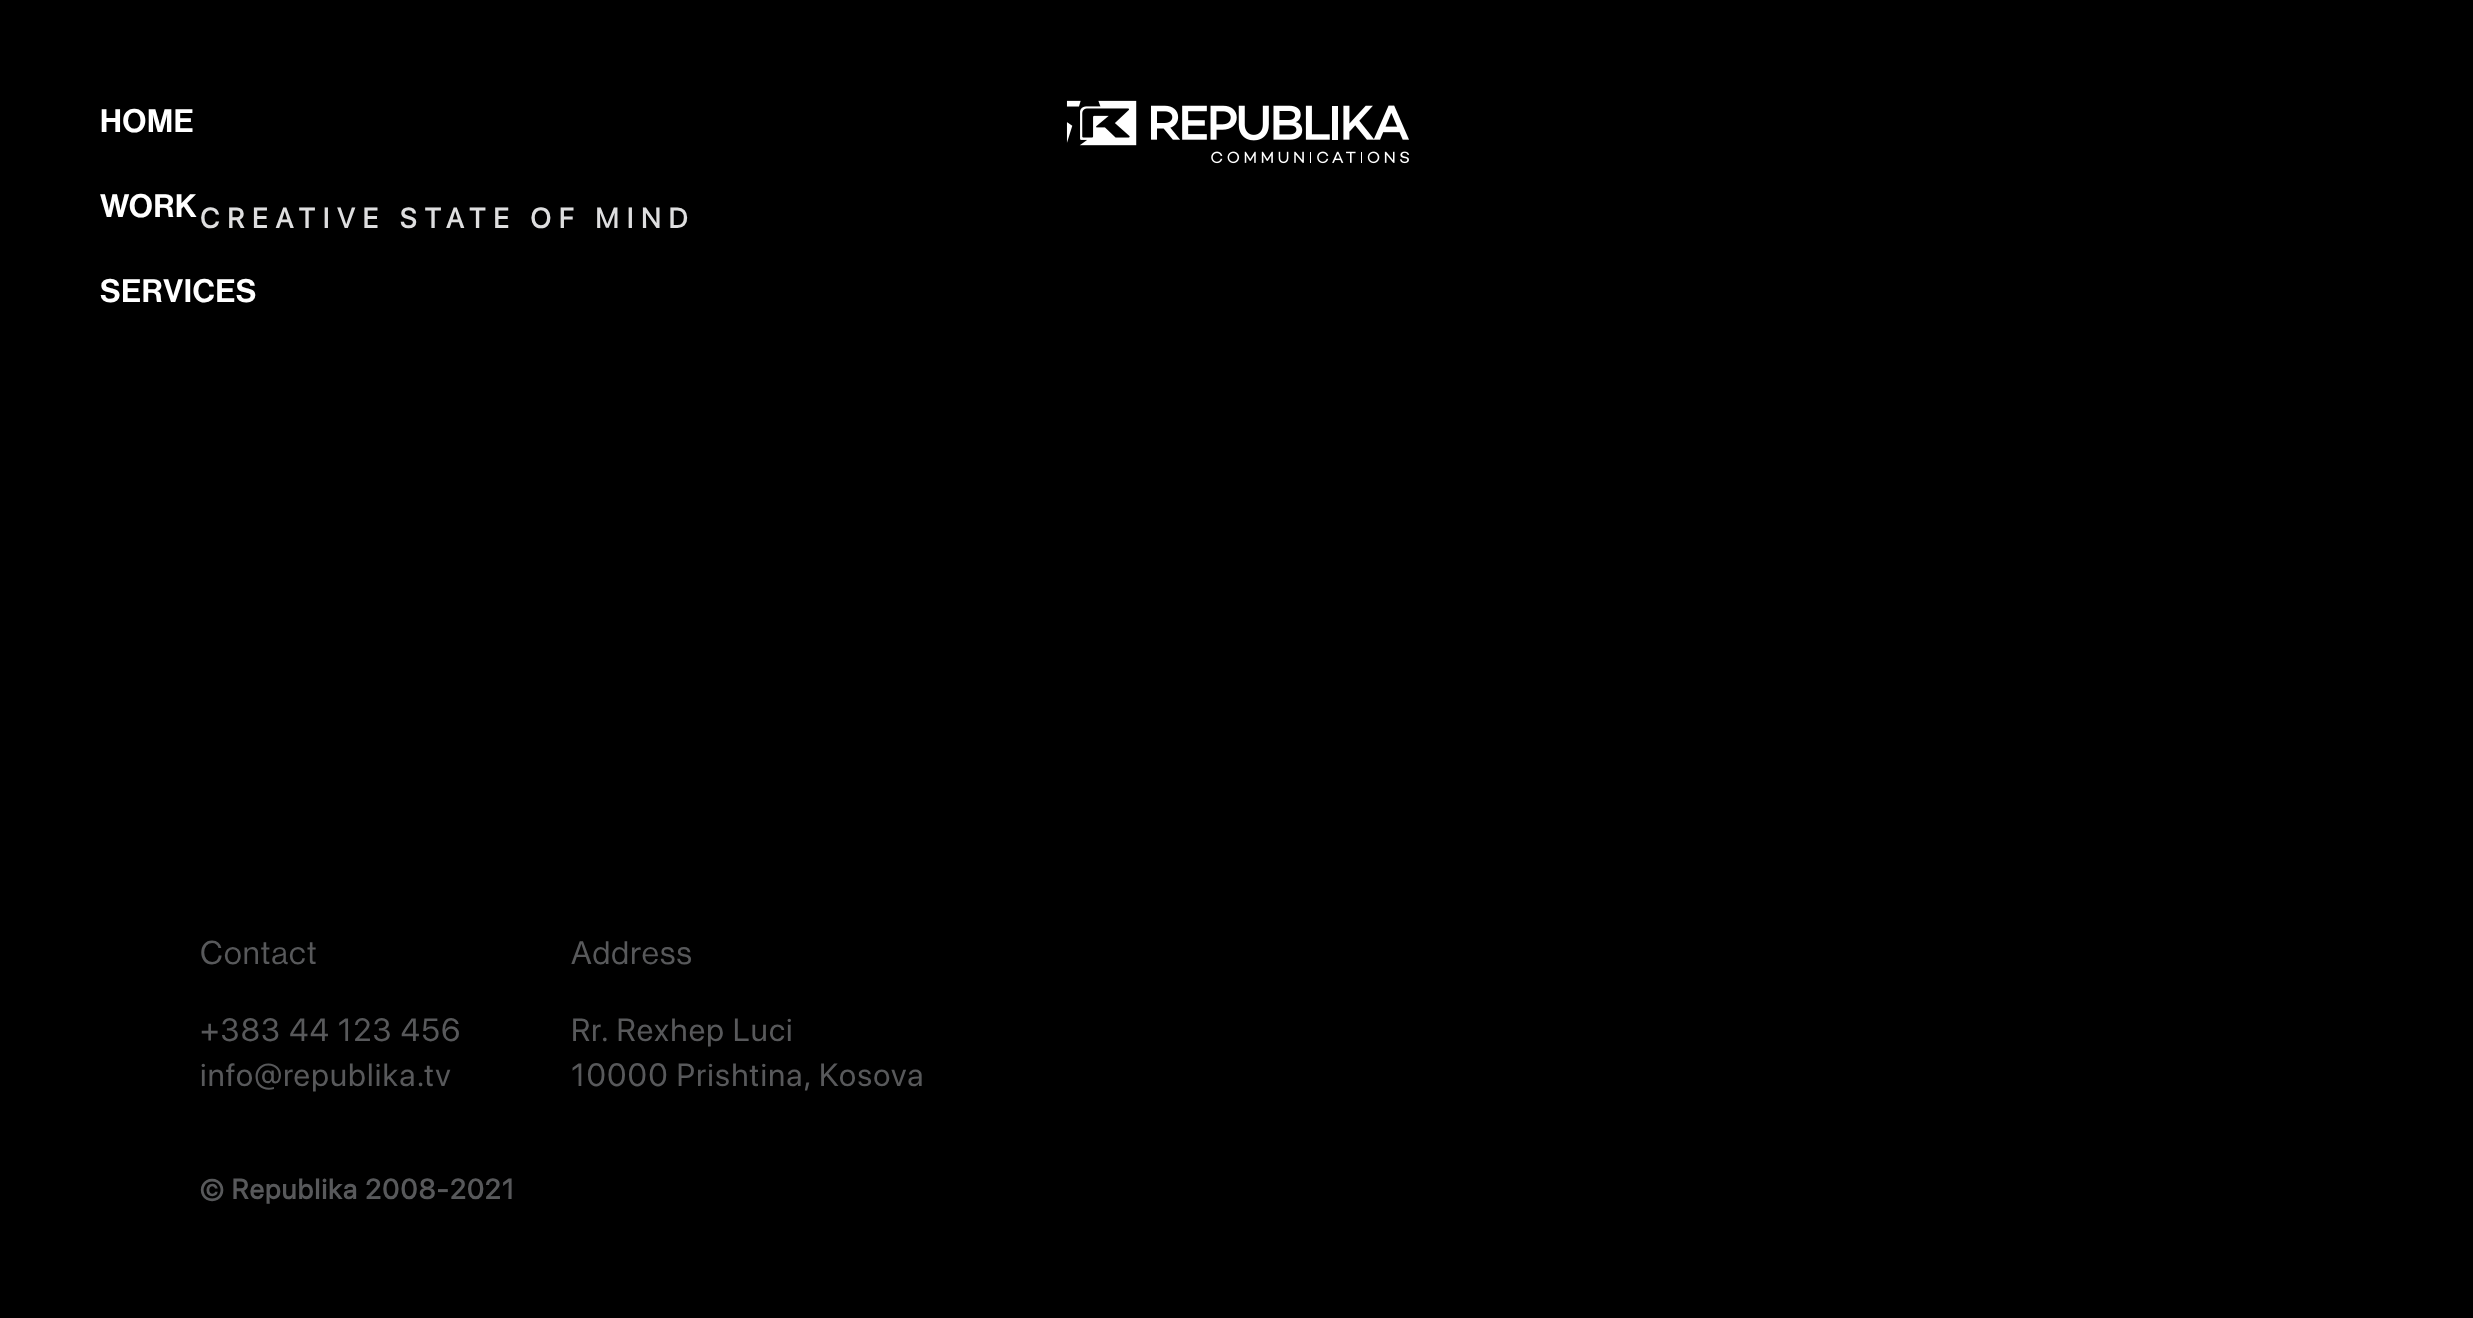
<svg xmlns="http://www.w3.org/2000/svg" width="2473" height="1318">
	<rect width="100%" height="100%" fill="#000000" />
	<g font-family="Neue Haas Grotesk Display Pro" font-size="32" font-weight="600" letter-spacing="0.75" fill="#FFFFFF">
		<text x="100" y="132">HOME</text>
		<text x="100" y="217">WORK</text>
		<text x="100" y="302">SERVICES</text>
	</g>
	<image x="1066" y="100" width="343" height="64" href="assets/img1.png" />
	<text x="200" y="228" font-family="SF Pro Display" font-size="28" font-weight="700" letter-spacing="8" fill="#DEDEDF">CREATIVE STATE OF MIND</text>
	<text x="200" y="964" font-family="Neue Haas Grotesk Display Pro" font-size="32" letter-spacing="1.2" fill="#58595B">Contact</text>
	<g font-family="SF Pro Display" font-size="32" letter-spacing="1.2" fill="#58595B">
		<text x="200" y="1041">+383 44 123 456</text>
		<text x="200" y="1086">info@republika.tv</text>
	</g>
	<text x="571" y="964" font-family="Neue Haas Grotesk Display Pro" font-size="32" letter-spacing="1.2" fill="#58595B">Address</text>
	<g font-family="SF Pro Display" font-size="32" letter-spacing="1.2" fill="#58595B">
		<text x="571" y="1041">Rr. Rexhep Luci</text>
		<text x="571" y="1086">10000 Prishtina, Kosova</text>
	</g>
	<text x="200" y="1199" font-family="SF Pro Display" font-size="28" font-weight="700" letter-spacing="1.2" fill="#58595B">© Republika 2008-2021</text>
</svg>
